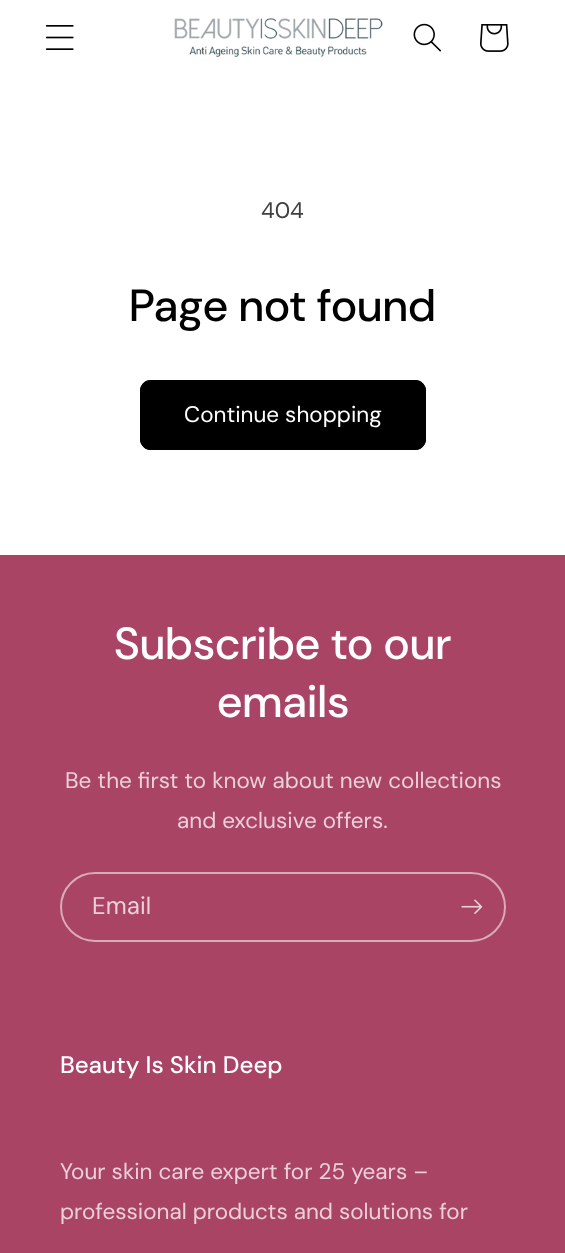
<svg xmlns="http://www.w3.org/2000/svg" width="565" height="1253">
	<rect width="100%" height="100%" fill="#FFFFFF" />
	<image x="45" y="25" width="29" height="25" href="assets/img1.png" />
	<image x="174" y="18" width="209" height="39" href="assets/img2.png" />
	<image x="413" y="23" width="28" height="29" href="assets/img3.png" />
	<image x="480" y="24" width="29" height="28" href="assets/img4.png" />
	<text x="261" y="218" font-family="DM Sans" font-size="22.5" fill="#404040">404</text>
	<text x="129" y="321" font-family="DM Sans" font-size="45" font-weight="500" fill="#000000">Page not found</text>
	<rect x="140" y="380" width="286" height="70" rx="11" fill="#000000" />
	<rect x="141" y="381" width="284" height="68" rx="10" fill="none" stroke="#000000" stroke-width="2" />
	<text x="184" y="422" font-family="DM Sans" font-size="22.5" fill="#FFFFFF">Continue shopping</text>
	<rect x="0" y="555" width="565" height="698" fill="#AA4465" />
	<g font-family="DM Sans" font-size="45" font-weight="500" fill="#FFFFFF">
		<text x="114" y="659">Subscribe to our</text>
		<text x="217" y="717">emails</text>
	</g>
	<g font-family="DM Sans" font-size="22.5" fill="#EAD0D9">
		<text x="65" y="788">Be the first to know about new collections</text>
		<text x="177" y="828">and exclusive offers.</text>
	</g>
	<rect x="61" y="873" width="444" height="68" rx="34" fill="none" stroke="#D9ABBA" stroke-width="2" />
	<text x="92" y="914" font-family="'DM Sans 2'" font-size="24" fill="#EAD0D9">Email</text>
	<image x="461" y="899" width="22" height="15" href="assets/img5.png" />
	<text x="60" y="1073" font-family="'DM Sans 2'" font-size="24" font-weight="500" fill="#FFFFFF">Beauty Is Skin Deep</text>
	<g font-family="DM Sans" font-size="22.5" fill="#EAD0D9">
		<text x="60" y="1179">Your skin care expert for 25 years –</text>
		<text x="60" y="1219">professional products and solutions for</text>
	</g>
</svg>
